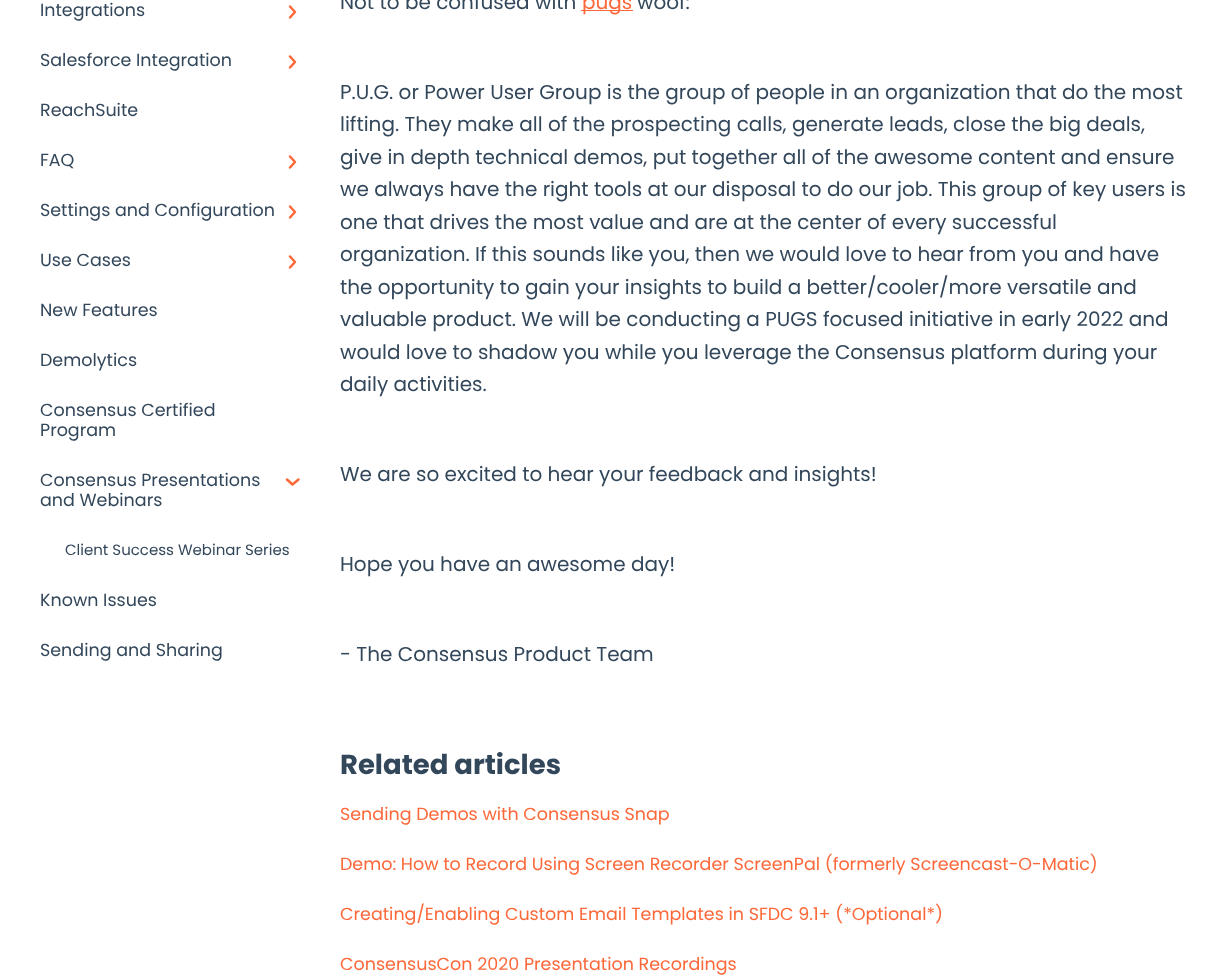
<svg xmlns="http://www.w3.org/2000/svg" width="1212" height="980">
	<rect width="100%" height="100%" fill="#FFFFFF" />
	<text x="40" y="16" font-family="Poppins" font-size="17.5" fill="#33475B">Integrations</text>
	<path d="M290 6.5L295 12L290 17.5" fill="none" stroke="#FC6839" stroke-width="2.5" stroke-linecap="round" stroke-linejoin="round" />
	<text x="40" y="66" font-family="Poppins" font-size="17.5" fill="#33475B">Salesforce Integration</text>
	<path d="M290 56.5L295 62L290 67.5" fill="none" stroke="#FC6839" stroke-width="2.5" stroke-linecap="round" stroke-linejoin="round" />
	<g font-family="Poppins" font-size="17.5" fill="#33475B">
		<text x="40" y="116">ReachSuite</text>
		<text x="40" y="166">FAQ</text>
	</g>
	<path d="M290 156.5L295 162L290 167.5" fill="none" stroke="#FC6839" stroke-width="2.5" stroke-linecap="round" stroke-linejoin="round" />
	<text x="40" y="216" font-family="Poppins" font-size="17.5" fill="#33475B">Settings and Configuration</text>
	<path d="M290 206.5L295 212L290 217.5" fill="none" stroke="#FC6839" stroke-width="2.5" stroke-linecap="round" stroke-linejoin="round" />
	<text x="40" y="266" font-family="Poppins" font-size="17.5" fill="#33475B">Use Cases</text>
	<path d="M290 256.5L295 262L290 267.5" fill="none" stroke="#FC6839" stroke-width="2.5" stroke-linecap="round" stroke-linejoin="round" />
	<g font-family="Poppins" font-size="17.5" fill="#33475B">
		<text x="40" y="316">New Features</text>
		<text x="40" y="366">Demolytics</text>
		<text x="40" y="416">Consensus Certified</text>
		<text x="40" y="436">Program</text>
		<text x="40" y="486">Consensus Presentations</text>
		<text x="40" y="506">and Webinars</text>
	</g>
	<path d="M298.5 479.5L292.5 484.5L287 479.5" fill="none" stroke="#FC6839" stroke-width="2.5" stroke-linecap="round" stroke-linejoin="round" />
	<text x="65" y="555" font-family="Poppins" font-size="15" fill="#33475B">Client Success Webinar Series</text>
	<g font-family="Poppins" font-size="17.5" fill="#33475B">
		<text x="40" y="606">Known Issues</text>
		<text x="40" y="656">Sending and Sharing</text>
	</g>
	<text x="340" y="9" font-family="Poppins" font-size="20" fill="#33475B">Not to be confused with</text>
	<rect x="581" y="10" width="52" height="1" fill="#FC6839" />
	<text x="582" y="9" font-family="Poppins" font-size="20" fill="#FC6839">pugs</text>
	<g font-family="Poppins" font-size="20" fill="#33475B">
		<text x="637" y="9">woof:</text>
		<text x="340" y="99">P.U.G. or Power User Group is the group of people in an organization that do the most</text>
		<text x="340" y="131">lifting. They make all of the prospecting calls, generate leads, close the big deals,</text>
		<text x="340" y="164">give in depth technical demos, put together all of the awesome content and ensure</text>
		<text x="340" y="196">we always have the right tools at our disposal to do our job. This group of key users is</text>
		<text x="340" y="229">one that drives the most value and are at the center of every successful</text>
		<text x="340" y="261">organization. If this sounds like you, then we would love to hear from you and have</text>
		<text x="340" y="294">the opportunity to gain your insights to build a better/cooler/more versatile and</text>
		<text x="340" y="326">valuable product. We will be conducting a PUGS focused initiative in early 2022 and</text>
		<text x="340" y="359">would love to shadow you while you leverage the Consensus platform during your</text>
		<text x="340" y="391">daily activities.</text>
		<text x="340" y="481">We are so excited to hear your feedback and insights!</text>
		<text x="340" y="571">Hope you have an awesome day!</text>
		<text x="340" y="661">- The Consensus Product Team</text>
	</g>
	<text x="340" y="774" font-family="Poppins" font-size="27.5" font-weight="700" fill="#33475B">Related articles</text>
	<g font-family="Poppins" font-size="17.5" fill="#FC6839">
		<text x="340" y="820">Sending Demos with Consensus Snap</text>
		<text x="340" y="870">Demo: How to Record Using Screen Recorder ScreenPal (formerly Screencast-O-Matic)</text>
		<text x="340" y="920">Creating/Enabling Custom Email Templates in SFDC 9.1+ (*Optional*)</text>
		<text x="340" y="970">ConsensusCon 2020 Presentation Recordings</text>
	</g>
</svg>
